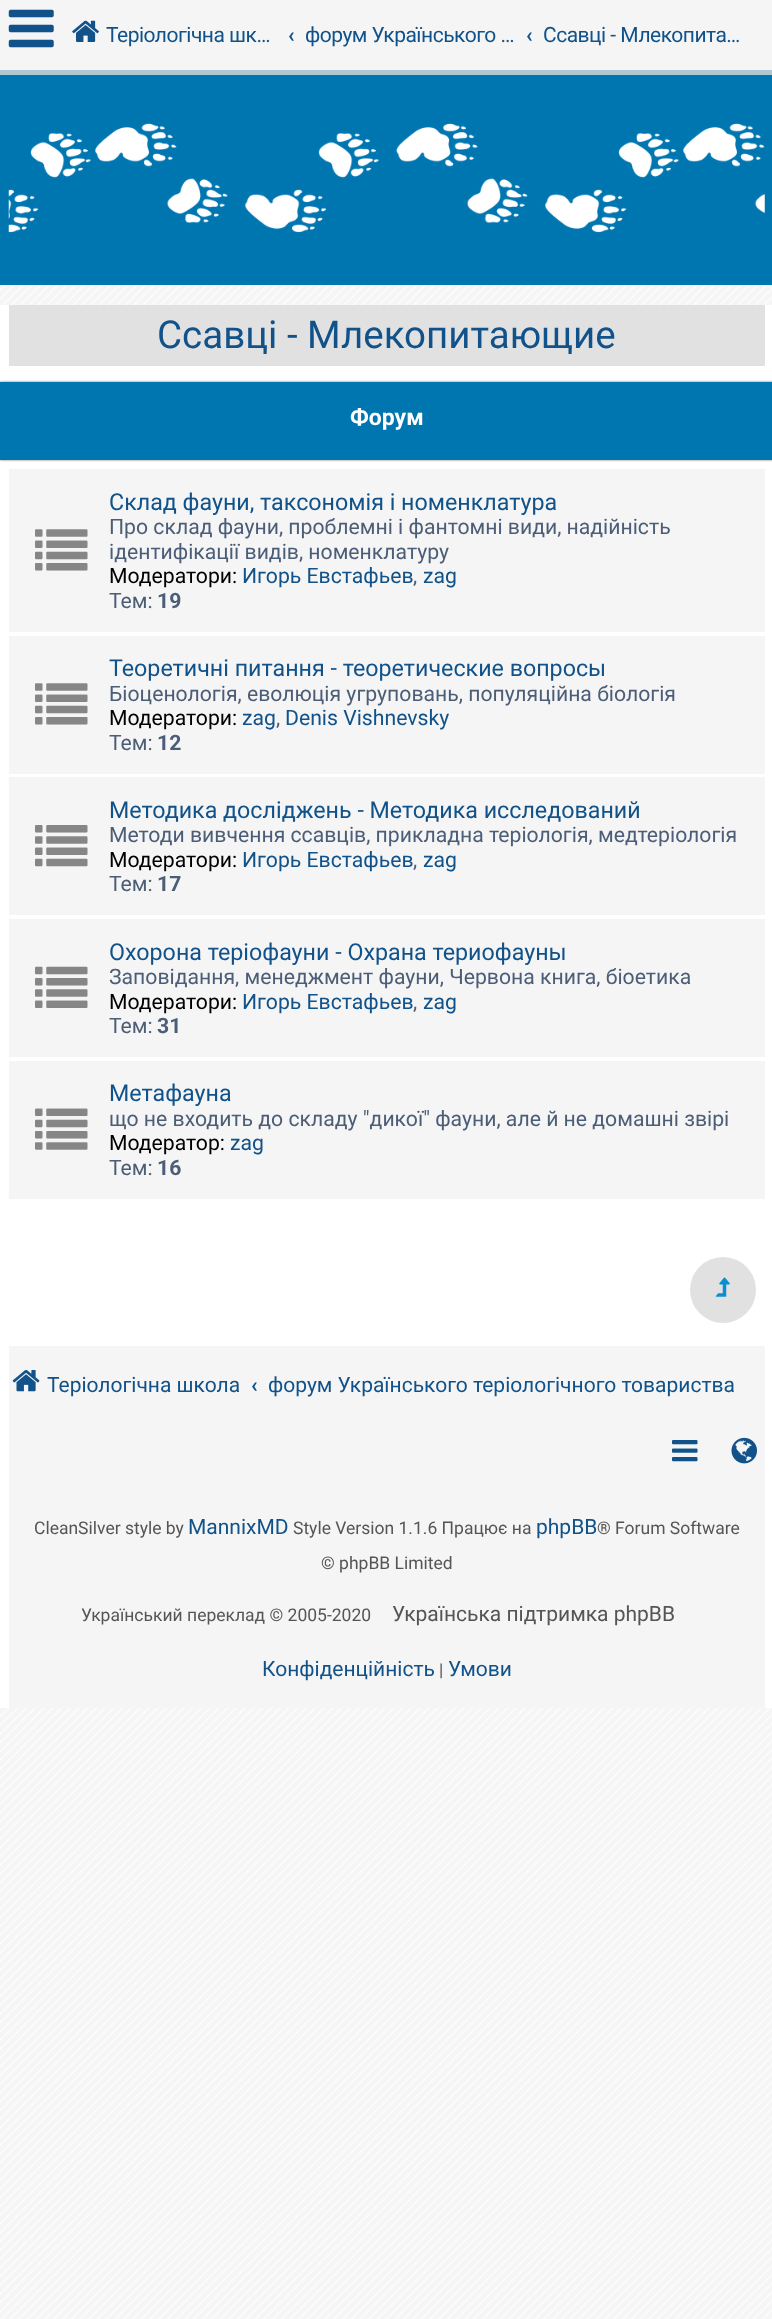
<svg xmlns="http://www.w3.org/2000/svg" width="772" height="2319">
	<rect width="100%" height="100%" fill="#FFFFFF" />
	<image x="0" y="285" width="772" height="2034" href="assets/img1.png" />
	<rect x="0" y="0" width="772" height="70" fill="#F5F5F5" />
	<rect x="0" y="70" width="772" height="5" fill="#B0C8D4" />
	<image x="8" y="9" width="46" height="39" href="assets/img2.png" />
	<image x="72" y="20" width="27" height="22" href="assets/img3.png" />
	<text x="106" y="42" font-family="Roboto" font-size="21" letter-spacing="-0.5" fill="#105289">Теріологічна шк…</text>
	<text x="288" y="42" font-family="Roboto" font-size="21.2" font-weight="700" fill="#105289">‹</text>
	<text x="305" y="42" font-family="Roboto" font-size="21" letter-spacing="-0.5" fill="#105289">форум Українського …</text>
	<text x="526" y="42" font-family="Roboto" font-size="21.2" font-weight="700" fill="#105289">‹</text>
	<text x="543" y="42" font-family="Roboto" font-size="21" letter-spacing="-0.5" fill="#105289">Ссавці - Млекопита…</text>
	<rect x="0" y="75" width="772" height="210" fill="#0076B1" />
	<image x="8" y="123" width="757" height="110" href="assets/img4.png" />
	<rect x="0" y="305" width="772" height="1403" fill="#FFFFFF" />
	<rect x="9" y="305" width="756" height="61" fill="#E1E1E1" />
	<text x="157" y="348" font-family="Roboto" font-size="38.5" fill="#105289">Ссавці - Млекопитающие</text>
	<rect x="0" y="382" width="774" height="78" fill="#717171" filter="blur(1px)" />
	<rect x="0" y="382" width="772" height="78" fill="#0076B1" />
	<text x="350" y="425" font-family="Roboto" font-size="23" font-weight="700" fill="#FFFFFF">Форум</text>
	<rect x="9" y="469" width="756" height="730" fill="#F5F5F5" />
	<rect x="9" y="632" width="756" height="4" fill="#FFFFFF" />
	<image x="35" y="529" width="53" height="42" href="assets/img5.png" />
	<text x="109" y="510" font-family="Roboto" font-size="23.25" fill="#105289">Склад фауни, таксономія і номенклатура</text>
	<g font-family="Roboto" font-size="21.2" fill="#4C5D77">
		<text x="109" y="534">Про склад фауни, проблемні і фантомні види, надійність</text>
		<text x="109" y="559">ідентифікації видів, номенклатуру</text>
	</g>
	<text x="109" y="583" font-family="Roboto" font-size="21.2" fill="#000000">Модератори:</text>
	<text x="242" y="583" font-family="Roboto" font-size="21.2" fill="#105289">Игорь Евстафьев</text>
	<text x="413" y="583" font-family="Roboto" font-size="21.2" fill="#4C5D77">,</text>
	<text x="423" y="583" font-family="Roboto" font-size="21.2" fill="#105289">zag</text>
	<text x="109" y="608" font-family="Roboto" font-size="21.2" fill="#4C5D77">Тем:</text>
	<text x="157" y="608" font-family="Roboto" font-size="21.2" font-weight="700" fill="#4C5D77">19</text>
	<rect x="9" y="774" width="756" height="3" fill="#FFFFFF" />
	<image x="35" y="683" width="53" height="42" href="assets/img5.png" />
	<text x="109" y="676" font-family="Roboto" font-size="23.25" fill="#105289">Теоретичні питання - теоретические вопросы</text>
	<text x="109" y="701" font-family="Roboto" font-size="21.2" fill="#4C5D77">Біоценологія, еволюція угруповань, популяційна біологія</text>
	<text x="109" y="725" font-family="Roboto" font-size="21.2" fill="#000000">Модератори:</text>
	<text x="242" y="725" font-family="Roboto" font-size="21.2" fill="#105289">zag</text>
	<text x="276" y="725" font-family="Roboto" font-size="21.2" fill="#4C5D77">,</text>
	<text x="285" y="725" font-family="Roboto" font-size="21.2" fill="#105289">Denis Vishnevsky</text>
	<text x="109" y="750" font-family="Roboto" font-size="21.2" fill="#4C5D77">Тем:</text>
	<text x="157" y="750" font-family="Roboto" font-size="21.2" font-weight="700" fill="#4C5D77">12</text>
	<rect x="9" y="915" width="756" height="4" fill="#FFFFFF" />
	<image x="35" y="825" width="53" height="42" href="assets/img6.png" />
	<text x="109" y="818" font-family="Roboto" font-size="23.25" fill="#105289">Методика досліджень - Методика исследований</text>
	<text x="109" y="842" font-family="Roboto" font-size="21.2" fill="#4C5D77">Методи вивчення ссавців, прикладна теріологія, медтеріологія</text>
	<text x="109" y="867" font-family="Roboto" font-size="21.2" fill="#000000">Модератори:</text>
	<text x="242" y="867" font-family="Roboto" font-size="21.2" fill="#105289">Игорь Евстафьев</text>
	<text x="413" y="867" font-family="Roboto" font-size="21.2" fill="#4C5D77">,</text>
	<text x="423" y="867" font-family="Roboto" font-size="21.2" fill="#105289">zag</text>
	<text x="109" y="891" font-family="Roboto" font-size="21.2" fill="#4C5D77">Тем:</text>
	<text x="157" y="891" font-family="Roboto" font-size="21.2" font-weight="700" fill="#4C5D77">17</text>
	<rect x="9" y="1057" width="756" height="4" fill="#FFFFFF" />
	<image x="35" y="966" width="53" height="42" href="assets/img7.png" />
	<text x="109" y="960" font-family="Roboto" font-size="23.25" fill="#105289">Охорона теріофауни - Охрана териофауны</text>
	<text x="109" y="984" font-family="Roboto" font-size="21.2" fill="#4C5D77">Заповідання, менеджмент фауни, Червона книга, біоетика</text>
	<text x="109" y="1009" font-family="Roboto" font-size="21.2" fill="#000000">Модератори:</text>
	<text x="242" y="1009" font-family="Roboto" font-size="21.2" fill="#105289">Игорь Евстафьев</text>
	<text x="413" y="1009" font-family="Roboto" font-size="21.2" fill="#4C5D77">,</text>
	<text x="423" y="1009" font-family="Roboto" font-size="21.2" fill="#105289">zag</text>
	<text x="109" y="1033" font-family="Roboto" font-size="21.2" fill="#4C5D77">Тем:</text>
	<text x="157" y="1033" font-family="Roboto" font-size="21.2" font-weight="700" fill="#4C5D77">31</text>
	<image x="35" y="1108" width="53" height="42" href="assets/img8.png" />
	<text x="109" y="1101" font-family="Roboto" font-size="23.25" fill="#105289">Метафауна</text>
	<text x="109" y="1126" font-family="Roboto" font-size="21.2" fill="#4C5D77">що не входить до складу "дикої" фауни, але й не домашні звірі</text>
	<text x="109" y="1150" font-family="Roboto" font-size="21.2" fill="#000000">Модератор:</text>
	<text x="230" y="1150" font-family="Roboto" font-size="21.2" fill="#105289">zag</text>
	<text x="109" y="1175" font-family="Roboto" font-size="21.2" fill="#4C5D77">Тем:</text>
	<text x="157" y="1175" font-family="Roboto" font-size="21.2" font-weight="700" fill="#4C5D77">16</text>
	<circle cx="723" cy="1290" r="33" fill="#E1E1E1" />
	<image x="715" y="1277" width="15" height="20" href="assets/img9.png" />
	<rect x="9" y="1346" width="756" height="362" fill="#F5F5F5" />
	<image x="12" y="1370" width="28" height="22" href="assets/img10.png" />
	<text x="47" y="1392" font-family="Roboto" font-size="21" fill="#105289">Теріологічна школа</text>
	<text x="251" y="1392" font-family="Roboto" font-size="21.2" font-weight="700" fill="#105289">‹</text>
	<text x="268" y="1392" font-family="Roboto" font-size="21" fill="#105289">форум Українського теріологічного товариства</text>
	<image x="672" y="1440" width="26" height="22" href="assets/img11.png" />
	<image x="731" y="1437" width="26" height="27" href="assets/img12.png" />
	<text x="34" y="1534" font-family="Roboto" font-size="17.5" fill="#555555">CleanSilver style by</text>
	<text x="188" y="1534" font-family="Roboto" font-size="21" fill="#105289">MannixMD</text>
	<text x="293" y="1534" font-family="Roboto" font-size="17.5" fill="#555555">Style Version 1.1.6 Працює на</text>
	<text x="536" y="1534" font-family="Roboto" font-size="21" fill="#105289">phpBB</text>
	<g font-family="Roboto" font-size="17.5" fill="#555555">
		<text x="597" y="1534">® Forum Software</text>
		<text x="321" y="1569">© phpBB Limited</text>
		<text x="81" y="1621">Український переклад © 2005-2020</text>
	</g>
	<text x="392" y="1621" font-family="Roboto" font-size="21" fill="#555555">Українська підтримка phpBB</text>
	<text x="262" y="1676" font-family="Roboto" font-size="21" fill="#105289">Конфіденційність</text>
	<text x="439" y="1676" font-family="Roboto" font-size="17.5" fill="#555555">|</text>
	<text x="448" y="1676" font-family="Roboto" font-size="21" fill="#105289">Умови</text>
</svg>
